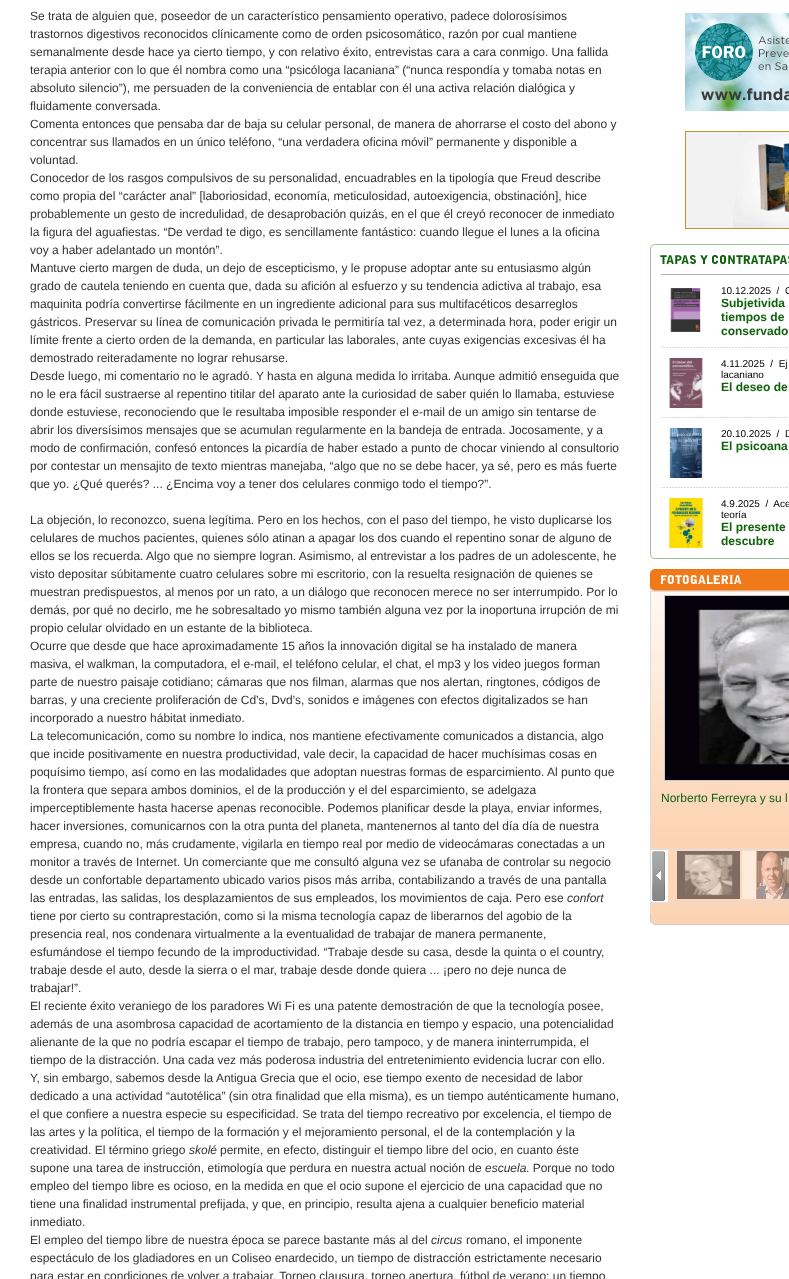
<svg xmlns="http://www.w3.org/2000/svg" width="789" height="1279">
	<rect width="100%" height="100%" fill="#FFFFFF" />
	<g font-family="Liberation Sans" font-size="12" fill="#333333">
		<text x="30" y="20">Se trata de alguien que, poseedor de un característico pensamiento operativo, padece dolorosísimos</text>
		<text x="30" y="38">trastornos digestivos reconocidos clínicamente como de orden psicosomático, razón por cual mantiene</text>
		<text x="30" y="56">semanalmente desde hace ya cierto tiempo, y con relativo éxito, entrevistas cara a cara conmigo. Una fallida</text>
		<text x="30" y="74">terapia anterior con lo que él nombra como una “psicóloga lacaniana” (“nunca respondía y tomaba notas en</text>
		<text x="30" y="92">absoluto silencio”), me persuaden de la conveniencia de entablar con él una activa relación dialógica y</text>
		<text x="30" y="110">fluidamente conversada.</text>
		<text x="30" y="128">Comenta entonces que pensaba dar de baja su celular personal, de manera de ahorrarse el costo del abono y</text>
		<text x="30" y="146">concentrar sus llamados en un único teléfono, “una verdadera oficina móvil” permanente y disponible a</text>
		<text x="30" y="164">voluntad.</text>
		<text x="30" y="182">Conocedor de los rasgos compulsivos de su personalidad, encuadrables en la tipología que Freud describe</text>
		<text x="30" y="200">como propia del “carácter anal” [laboriosidad, economía, meticulosidad, autoexigencia, obstinación], hice</text>
		<text x="30" y="218">probablemente un gesto de incredulidad, de desaprobación quizás, en el que él creyó reconocer de inmediato</text>
		<text x="30" y="236">la figura del aguafiestas. “De verdad te digo, es sencillamente fantástico: cuando llegue el lunes a la oficina</text>
		<text x="30" y="254">voy a haber adelantado un montón”.</text>
		<text x="30" y="272">Mantuve cierto margen de duda, un dejo de escepticismo, y le propuse adoptar ante su entusiasmo algún</text>
		<text x="30" y="290">grado de cautela teniendo en cuenta que, dada su afición al esfuerzo y su tendencia adictiva al trabajo, esa</text>
		<text x="30" y="308">maquinita podría convertirse fácilmente en un ingrediente adicional para sus multifacéticos desarreglos</text>
		<text x="30" y="326">gástricos. Preservar su línea de comunicación privada le permitiría tal vez, a determinada hora, poder erigir un</text>
		<text x="30" y="344">límite frente a cierto orden de la demanda, en particular las laborales, ante cuyas exigencias excesivas él ha</text>
		<text x="30" y="362">demostrado reiteradamente no lograr rehusarse.</text>
		<text x="30" y="380">Desde luego, mi comentario no le agradó. Y hasta en alguna medida lo irritaba. Aunque admitió enseguida que</text>
		<text x="30" y="398">no le era fácil sustraerse al repentino titilar del aparato ante la curiosidad de saber quién lo llamaba, estuviese</text>
		<text x="30" y="416">donde estuviese, reconociendo que le resultaba imposible responder el e-mail de un amigo sin tentarse de</text>
		<text x="30" y="434">abrir los diversísimos mensajes que se acumulan regularmente en la bandeja de entrada. Jocosamente, y a</text>
		<text x="30" y="452">modo de confirmación, confesó entonces la picardía de haber estado a punto de chocar viniendo al consultorio</text>
		<text x="30" y="470">por contestar un mensajito de texto mientras manejaba, “algo que no se debe hacer, ya sé, pero es más fuerte</text>
		<text x="30" y="488">que yo. ¿Qué querés? ... ¿Encima voy a tener dos celulares conmigo todo el tiempo?”.</text>
		<text x="30" y="524">La objeción, lo reconozco, suena legítima. Pero en los hechos, con el paso del tiempo, he visto duplicarse los</text>
		<text x="30" y="542">celulares de muchos pacientes, quienes sólo atinan a apagar los dos cuando el repentino sonar de alguno de</text>
		<text x="30" y="560">ellos se los recuerda. Algo que no siempre logran. Asimismo, al entrevistar a los padres de un adolescente, he</text>
		<text x="30" y="578">visto depositar súbitamente cuatro celulares sobre mi escritorio, con la resuelta resignación de quienes se</text>
		<text x="30" y="596">muestran predispuestos, al menos por un rato, a un diálogo que reconocen merece no ser interrumpido. Por lo</text>
		<text x="30" y="614">demás, por qué no decirlo, me he sobresaltado yo mismo también alguna vez por la inoportuna irrupción de mi</text>
		<text x="30" y="632">propio celular olvidado en un estante de la biblioteca.</text>
		<text x="30" y="650">Ocurre que desde que hace aproximadamente 15 años la innovación digital se ha instalado de manera</text>
		<text x="30" y="668">masiva, el walkman, la computadora, el e-mail, el teléfono celular, el chat, el mp3 y los video juegos forman</text>
		<text x="30" y="686">parte de nuestro paisaje cotidiano; cámaras que nos filman, alarmas que nos alertan, ringtones, códigos de</text>
		<text x="30" y="704">barras, y una creciente proliferación de Cd’s, Dvd’s, sonidos e imágenes con efectos digitalizados se han</text>
		<text x="30" y="722">incorporado a nuestro hábitat inmediato.</text>
		<text x="30" y="740">La telecomunicación, como su nombre lo indica, nos mantiene efectivamente comunicados a distancia, algo</text>
		<text x="30" y="758">que incide positivamente en nuestra productividad, vale decir, la capacidad de hacer muchísimas cosas en</text>
		<text x="30" y="776">poquísimo tiempo, así como en las modalidades que adoptan nuestras formas de esparcimiento. Al punto que</text>
		<text x="30" y="794">la frontera que separa ambos dominios, el de la producción y el del esparcimiento, se adelgaza</text>
		<text x="30" y="812">imperceptiblemente hasta hacerse apenas reconocible. Podemos planificar desde la playa, enviar informes,</text>
		<text x="30" y="830">hacer inversiones, comunicarnos con la otra punta del planeta, mantenernos al tanto del día día de nuestra</text>
		<text x="30" y="848">empresa, cuando no, más crudamente, vigilarla en tiempo real por medio de videocámaras conectadas a un</text>
		<text x="30" y="866">monitor a través de Internet. Un comerciante que me consultó alguna vez se ufanaba de controlar su negocio</text>
		<text x="30" y="884">desde un confortable departamento ubicado varios pisos más arriba, contabilizando a través de una pantalla</text>
		<text x="30" y="902">las entradas, las salidas, los desplazamientos de sus empleados, los movimientos de caja. Pero ese</text>
	</g>
	<text x="567" y="902" font-family="Liberation Sans" font-size="12" font-style="italic" fill="#333333">confort</text>
	<g font-family="Liberation Sans" font-size="12" fill="#333333">
		<text x="30" y="920">tiene por cierto su contraprestación, como si la misma tecnología capaz de liberarnos del agobio de la</text>
		<text x="30" y="938">presencia real, nos condenara virtualmente a la eventualidad de trabajar de manera permanente,</text>
		<text x="30" y="956">esfumándose el tiempo fecundo de la improductividad. “Trabaje desde su casa, desde la quinta o el country,</text>
		<text x="30" y="974">trabaje desde el auto, desde la sierra o el mar, trabaje desde donde quiera ... ¡pero no deje nunca de</text>
		<text x="30" y="992">trabajar!”.</text>
		<text x="30" y="1010">El reciente éxito veraniego de los paradores Wi Fi es una patente demostración de que la tecnología posee,</text>
		<text x="30" y="1028">además de una asombrosa capacidad de acortamiento de la distancia en tiempo y espacio, una potencialidad</text>
		<text x="30" y="1046">alienante de la que no podría escapar el tiempo de trabajo, pero tampoco, y de manera ininterrumpida, el</text>
		<text x="30" y="1064">tiempo de la distracción. Una cada vez más poderosa industria del entretenimiento evidencia lucrar con ello.</text>
		<text x="30" y="1082">Y, sin embargo, sabemos desde la Antigua Grecia que el ocio, ese tiempo exento de necesidad de labor</text>
		<text x="30" y="1100">dedicado a una actividad “autotélica” (sin otra finalidad que ella misma), es un tiempo auténticamente humano,</text>
		<text x="30" y="1118">el que confiere a nuestra especie su especificidad. Se trata del tiempo recreativo por excelencia, el tiempo de</text>
		<text x="30" y="1136">las artes y la política, el tiempo de la formación y el mejoramiento personal, el de la contemplación y la</text>
		<text x="30" y="1154">creatividad. El término griego</text>
	</g>
	<text x="189" y="1154" font-family="Liberation Sans" font-size="12" font-style="italic" fill="#333333">skolé</text>
	<g font-family="Liberation Sans" font-size="12" fill="#333333">
		<text x="220" y="1154">permite, en efecto, distinguir el tiempo libre del ocio, en cuanto éste</text>
		<text x="30" y="1172">supone una tarea de instrucción, etimología que perdura en nuestra actual noción de</text>
	</g>
	<text x="485" y="1172" font-family="Liberation Sans" font-size="12" font-style="italic" fill="#333333">escuela</text>
	<g font-family="Liberation Sans" font-size="12" fill="#333333">
		<text x="526" y="1172">. Porque no todo</text>
		<text x="30" y="1190">empleo del tiempo libre es ocioso, en la medida en que el ocio supone el ejercicio de una capacidad que no</text>
		<text x="30" y="1208">tiene una finalidad instrumental prefijada, y que, en principio, resulta ajena a cualquier beneficio material</text>
		<text x="30" y="1226">inmediato.</text>
		<text x="30" y="1244">El empleo del tiempo libre de nuestra época se parece bastante más al del</text>
	</g>
	<text x="431" y="1244" font-family="Liberation Sans" font-size="12" font-style="italic" fill="#333333">circus</text>
	<g font-family="Liberation Sans" font-size="12" fill="#333333">
		<text x="466" y="1244">romano, el imponente</text>
		<text x="30" y="1262">espectáculo de los gladiadores en un Coliseo enardecido, un tiempo de distracción estrictamente necesario</text>
		<text x="30" y="1280">para estar en condiciones de volver a trabajar. Torneo clausura, torneo apertura, fútbol de verano; un tiempo</text>
	</g>
	<image x="685" y="13" width="104" height="98" href="assets/img1.png" />
	<image x="685" y="131" width="104" height="98" href="assets/img2.png" />
	<image x="650" y="244" width="139" height="31" href="assets/img3.png" />
	<rect x="650" y="275" width="1" height="273" fill="#9FC09E" />
	<image x="661" y="347" width="127" height="1" href="assets/img4.png" />
	<image x="670" y="288" width="31" height="45" href="assets/img5.png" />
	<text x="721" y="294" font-family="Liberation Sans" font-size="10" fill="#000000" xml:space="preserve">10.12.2025  /  C</text>
	<g font-family="Liberation Sans" font-size="12" font-weight="700" fill="#10620C">
		<text x="721" y="307">Subjetivida</text>
		<text x="721" y="321">tiempos de</text>
		<text x="721" y="335">conservado</text>
	</g>
	<image x="661" y="417" width="127" height="1" href="assets/img4.png" />
	<image x="669" y="358" width="34" height="50" href="assets/img6.png" />
	<g font-family="Liberation Sans" font-size="10" fill="#000000">
		<text x="721" y="367" xml:space="preserve">4.11.2025  /  Ej</text>
		<text x="721" y="378">lacaniano</text>
	</g>
	<text x="721" y="391" font-family="Liberation Sans" font-size="12" font-weight="700" fill="#10620C">El deseo de</text>
	<image x="661" y="487" width="127" height="1" href="assets/img4.png" />
	<image x="669" y="428" width="34" height="50" href="assets/img7.png" />
	<text x="721" y="437" font-family="Liberation Sans" font-size="10" fill="#000000" xml:space="preserve">20.10.2025  /  D</text>
	<text x="721" y="450" font-family="Liberation Sans" font-size="12" font-weight="700" fill="#10620C">El psicoana</text>
	<image x="669" y="498" width="34" height="50" href="assets/img8.png" />
	<g font-family="Liberation Sans" font-size="10" fill="#000000">
		<text x="721" y="507" xml:space="preserve">4.9.2025  /  Ace</text>
		<text x="721" y="518">teoría</text>
	</g>
	<g font-family="Liberation Sans" font-size="12" font-weight="700" fill="#10620C">
		<text x="721" y="531">El presente</text>
		<text x="721" y="545">descubre</text>
	</g>
	<image x="650" y="548" width="139" height="11" href="assets/img9.png" />
	<image x="650" y="881" width="139" height="33" href="assets/img10.png" />
	<image x="650" y="569" width="139" height="22" href="assets/img11.png" />
	<image x="651" y="592" width="138" height="256" href="assets/img12.png" />
	<rect x="650" y="591" width="139" height="1" fill="#DDDDDD" />
	<rect x="650" y="591" width="1" height="257" fill="#DDDDDD" />
	<rect x="664.5" y="595.5" width="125" height="185" fill="none" stroke="#CCCCCC" />
	<image x="665" y="596" width="124" height="184" href="assets/img13.png" />
	<text x="661" y="802" font-family="Liberation Sans" font-size="12" fill="#10620C">Norberto Ferreyra y su l</text>
	<image x="651" y="849" width="138" height="32" href="assets/img14.png" />
	<rect x="650.5" y="848.5" width="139" height="55" fill="none" stroke="#DDDDDD" />
	<rect x="651" y="850" width="17" height="52" fill="#FFFFFF" />
	<image x="652" y="851" width="13" height="50" href="assets/img15.png" />
	<image x="677" y="851" width="63" height="48" href="assets/img16.png" />
	<image x="742" y="851" width="47" height="48" href="assets/img17.png" />
	<image x="650" y="914" width="139" height="11" href="assets/img18.png" />
</svg>
